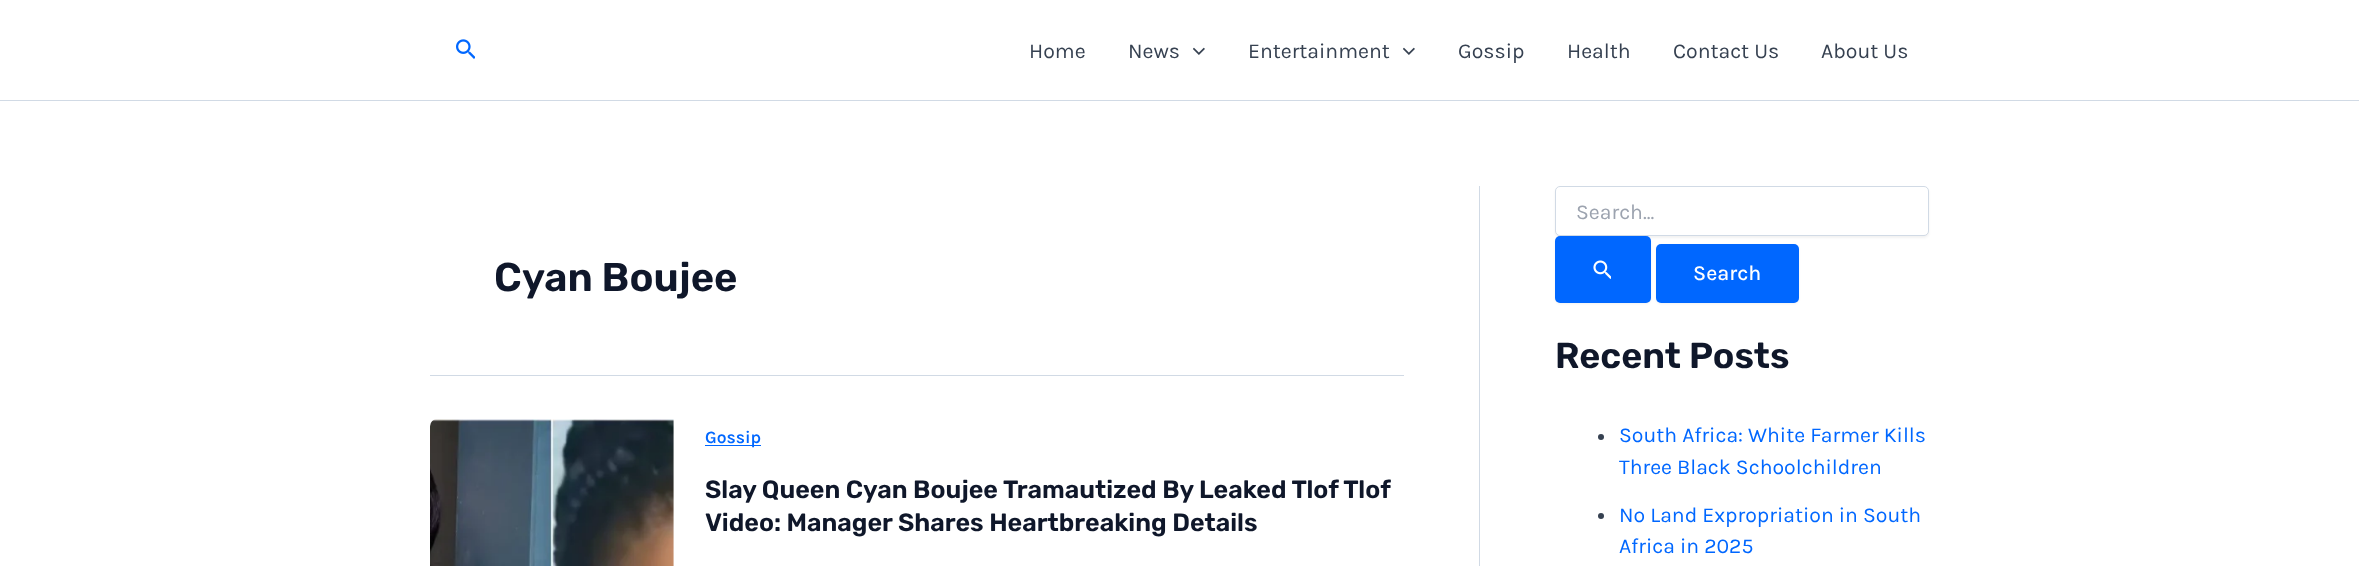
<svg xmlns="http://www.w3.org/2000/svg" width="2359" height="566">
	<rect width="100%" height="100%" fill="#FFFFFF" />
	<rect x="0" y="100" width="2359" height="1" fill="#D1DAE5" />
	<image x="456" y="39" width="19" height="20" href="assets/img1.png" />
	<g font-family="Karla" font-size="21.25" fill="#364151">
		<text x="1029" y="58">Home</text>
		<text x="1128" y="58">News</text>
	</g>
	<image x="1193" y="47" width="12" height="8" href="assets/img2.png" />
	<text x="1248" y="58" font-family="Karla" font-size="21.25" fill="#364151">Entertainment</text>
	<image x="1403" y="47" width="12" height="8" href="assets/img2.png" />
	<g font-family="Karla" font-size="21.25" fill="#364151">
		<text x="1458" y="58">Gossip</text>
		<text x="1567" y="58">Health</text>
		<text x="1673" y="58">Contact Us</text>
		<text x="1821" y="58">About Us</text>
	</g>
	<rect x="1479" y="186" width="1" height="380" fill="#D1DAE5" />
	<rect x="430" y="375" width="974" height="1" fill="#D1DAE5" />
	<text x="494" y="291" font-family="Rubik" font-size="40" font-weight="600" fill="#0F172A">Cyan Boujee</text>
	<image x="430" y="419" width="244" height="147" href="assets/img3.png" />
	<rect x="705" y="445" width="56" height="1" fill="#0067FF" />
	<text x="705" y="443" font-family="Karla" font-size="17.5" font-weight="600" fill="#0067FF">Gossip</text>
	<g font-family="Rubik" font-size="25" font-weight="600" fill="#0F172A">
		<text x="705" y="498">Slay Queen Cyan Boujee Tramautized By Leaked Tlof Tlof</text>
		<text x="705" y="531">Video: Manager Shares Heartbreaking Details</text>
	</g>
	<rect x="1555" y="188" width="374" height="50" rx="5" fill="#000000" fill-opacity="0.05" filter="blur(1px)" />
	<rect x="1555.5" y="186.5" width="373" height="49" rx="4.5" fill="#FFFFFF" stroke="#D1DAE5" />
	<text x="1576" y="219" font-family="Karla" font-size="21.25" fill="#9CA3AF">Search...</text>
	<rect x="1555" y="238" width="96" height="66" rx="5" fill="#000000" fill-opacity="0.05" filter="blur(1px)" />
	<rect x="1555" y="236" width="96" height="67" rx="5" fill="#0067FF" />
	<image x="1593" y="260" width="18" height="19" href="assets/img4.png" />
	<rect x="1656" y="245" width="143" height="59" rx="5" fill="#000000" fill-opacity="0.05" filter="blur(1px)" />
	<rect x="1656" y="244" width="143" height="59" rx="5" fill="#0067FF" />
	<text x="1693" y="280" font-family="Karla" font-size="21.25" font-weight="500" fill="#FFFFFF">Search</text>
	<text x="1555" y="368" font-family="Rubik" font-size="36" font-weight="600" fill="#0F172A">Recent Posts</text>
	<circle cx="1601" cy="437" r="3" fill="#364151" />
	<g font-family="Karla" font-size="21.25" fill="#0067FF">
		<text x="1619" y="442">South Africa: White Farmer Kills</text>
		<text x="1619" y="474">Three Black Schoolchildren</text>
	</g>
	<circle cx="1601" cy="516" r="3" fill="#364151" />
	<g font-family="Karla" font-size="21.25" fill="#0067FF">
		<text x="1619" y="522">No Land Expropriation in South</text>
		<text x="1619" y="553">Africa in 2025</text>
	</g>
</svg>
